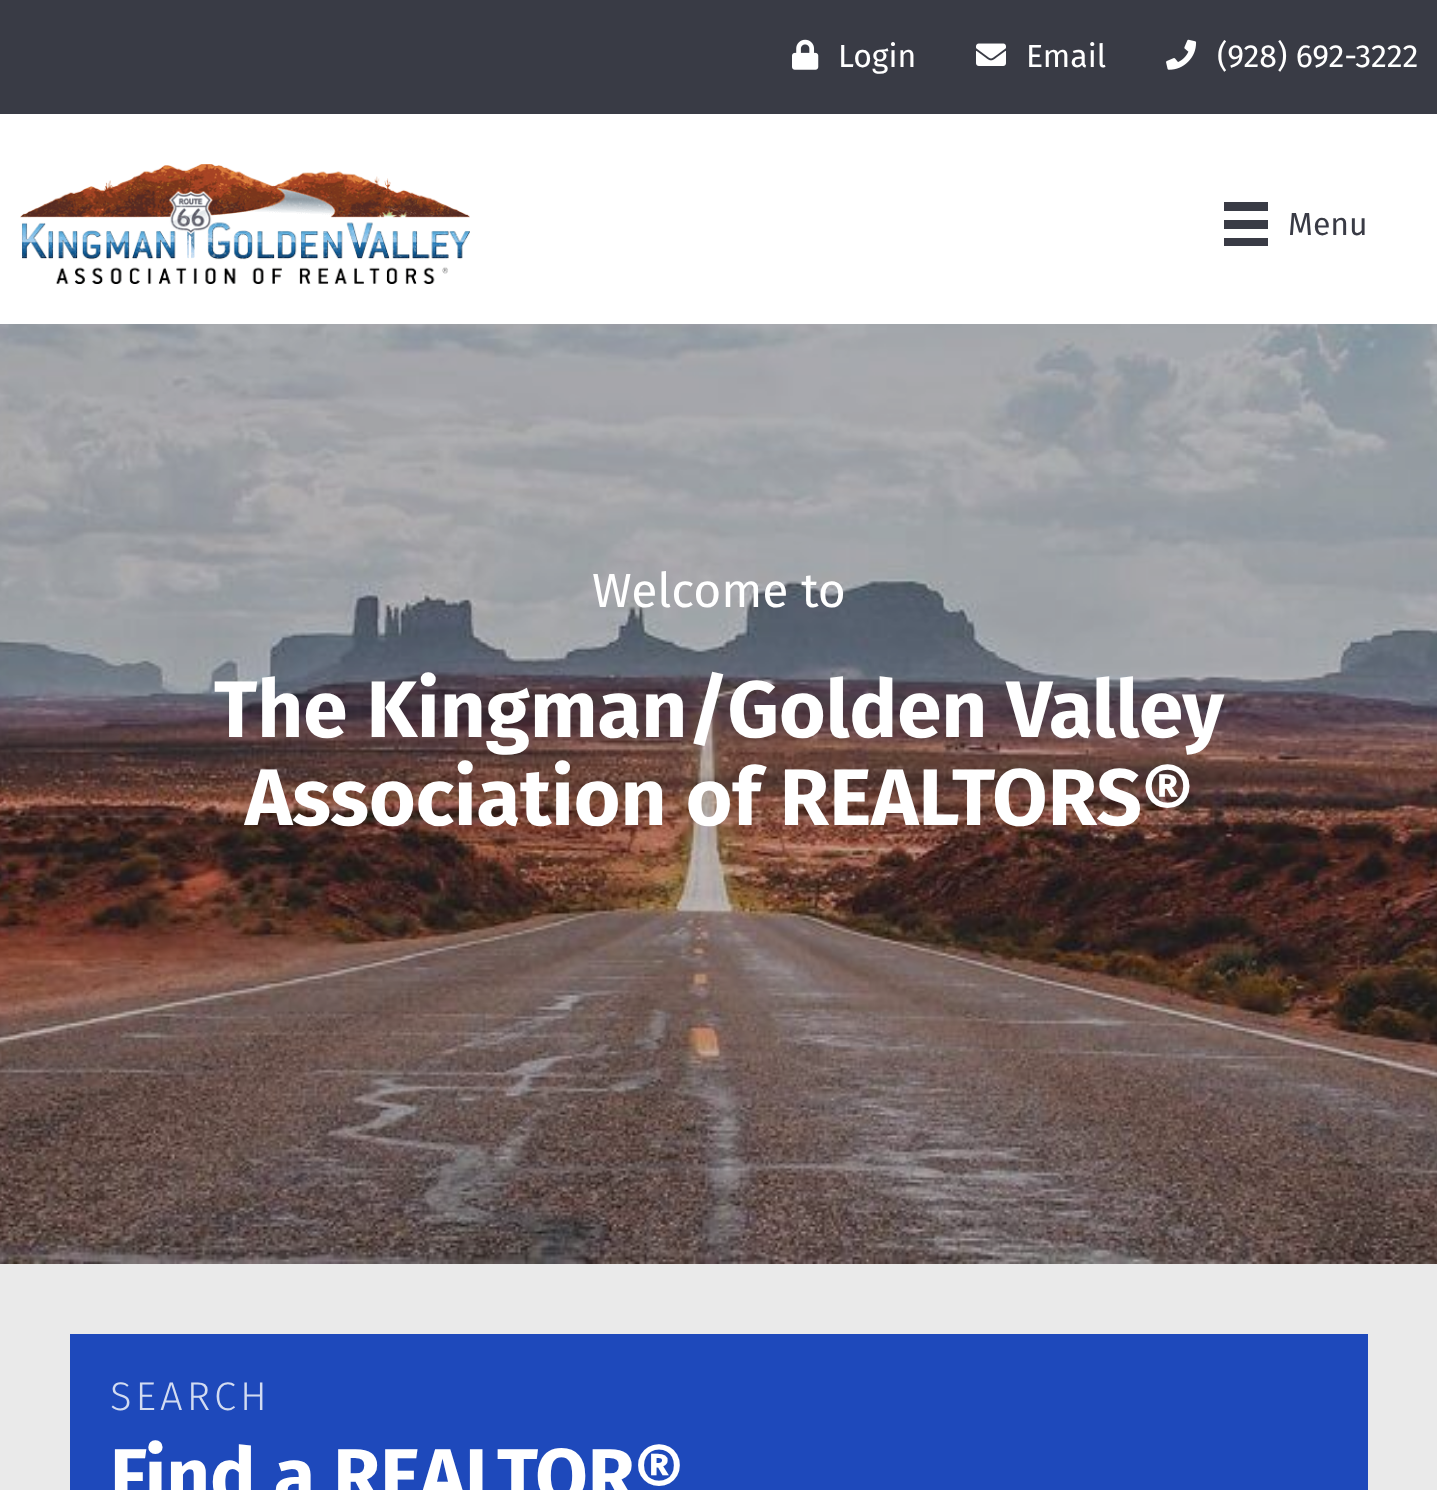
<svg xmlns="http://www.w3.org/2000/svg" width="1437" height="1490">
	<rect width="100%" height="100%" fill="#393B45" />
	<image x="792" y="39" width="27" height="31" href="assets/img1.png" />
	<text x="838" y="67" font-family="Fira Sans" font-size="32" fill="#FFFFFF">Login</text>
	<image x="976" y="43" width="30" height="23" href="assets/img2.png" />
	<text x="1026" y="67" font-family="Fira Sans" font-size="32" fill="#FFFFFF">Email</text>
	<image x="1166" y="39" width="31" height="31" href="assets/img3.png" />
	<text x="1217" y="67" font-family="Fira Sans" font-size="32" fill="#FFFFFF">(928) 692-3222</text>
	<rect x="0" y="114" width="1437" height="210" fill="#FFFFFF" />
	<image x="20" y="164" width="450" height="120" href="assets/img4.png" />
	<rect x="1224" y="202" width="44" height="9" fill="#393B45" />
	<rect x="1224" y="220" width="44" height="9" fill="#393B45" />
	<rect x="1224" y="238" width="44" height="8" fill="#393B45" />
	<text x="1288" y="235" font-family="Fira Sans" font-size="32" fill="#393B45">Menu</text>
	<rect x="0" y="1264" width="1437" height="226" fill="#EAEAEA" />
	<image x="0" y="324" width="1437" height="940" href="assets/img5.png" />
	<text x="592" y="607" font-family="Fira Sans" font-size="48" fill="#FFFFFF">Welcome to</text>
	<g font-family="Fira Sans" font-size="80" font-weight="700" fill="#FFFFFF">
		<text x="214" y="737">The Kingman/Golden Valley</text>
		<text x="245" y="825">Association of REALTORS®</text>
	</g>
	<rect x="70" y="1334" width="1298" height="156" fill="#1E49BB" />
	<text x="110" y="1410" font-family="Fira Sans" font-size="40" font-weight="300" letter-spacing="4" fill="#D2DBF1">SEARCH</text>
	<text x="110" y="1502" font-family="Fira Sans" font-size="76" font-weight="700" fill="#FFFFFF">Find a REALTOR®</text>
</svg>
